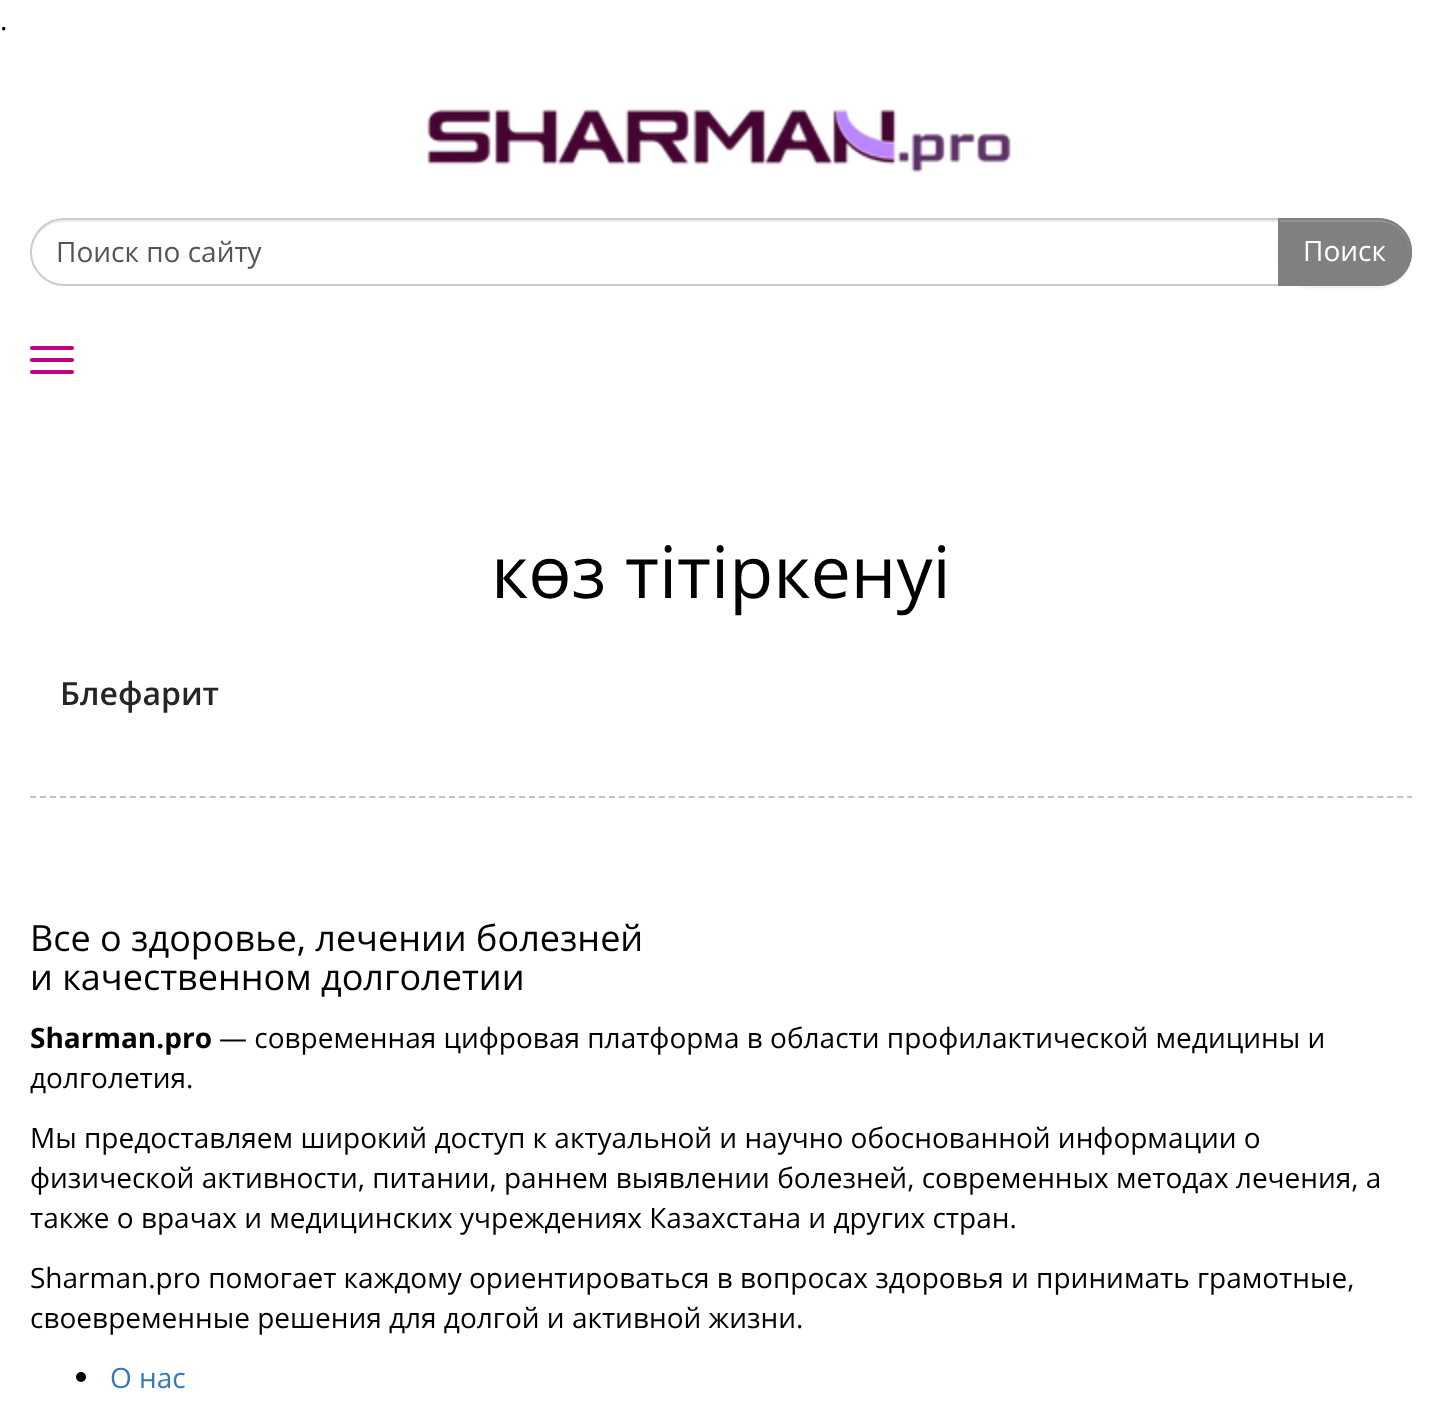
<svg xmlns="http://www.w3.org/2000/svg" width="1441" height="1406">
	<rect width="100%" height="100%" fill="#FFFFFF" />
	<text x="0" y="30" font-family="Open Sans" font-size="28" fill="#000000">.</text>
	<image x="427" y="109" width="584" height="64" href="assets/img1.png" />
	<path d="M64 222H1278V220H64C46 220 32 234 32 252V253C33 235 46 222 64 222Z" fill="#ECECEC" />
	<path d="M64 219H1279V285H64C46 285 31 270 31 252C31 234 46 219 64 219Z" fill="none" stroke="#CCCCCC" stroke-width="2" />
	<text x="56" y="262" font-family="Open Sans" font-size="28" fill="#555555">Поиск по сайту</text>
	<rect x="1278" y="220" width="134" height="68" rx="34" fill="#000000" fill-opacity="0.07" filter="blur(1px)" />
	<path d="M1278 218H1378C1397 218 1412 233 1412 252C1412 271 1397 286 1378 286H1278Z" fill="#808080" />
	<path d="M1280 222H1378C1396 222 1409 235 1410 253V252C1410 234 1396 220 1378 220H1280Z" fill="#939393" />
	<path d="M1279 219H1378C1396 219 1411 234 1411 252C1411 270 1396 285 1378 285H1279Z" fill="none" stroke="#808080" stroke-width="2" />
	<text x="1303" y="261" font-family="Open Sans" font-size="28" fill="#FFFFFF">Поиск</text>
	<rect x="30" y="346" width="44" height="4" rx="2" fill="#BA0388" />
	<rect x="30" y="358" width="44" height="4" rx="2" fill="#BA0388" />
	<rect x="30" y="370" width="44" height="4" rx="2" fill="#BA0388" />
	<text x="491" y="598" font-family="Open Sans" font-size="72" fill="#000000">көз тітіркенуі</text>
	<path d="M30 797H1412" fill="none" stroke="#C2C2C2" stroke-width="2" stroke-dasharray="6 3.98" />
	<text x="60" y="705" font-family="Open Sans" font-size="32" font-weight="600" fill="#252525">Блефарит</text>
	<g font-family="Open Sans" font-size="36" fill="#000000">
		<text x="30" y="951">Все о здоровье, лечении болезней</text>
		<text x="30" y="990">и качественном долголетии</text>
	</g>
	<text x="30" y="1048" font-family="Open Sans" font-size="28" font-weight="700" fill="#000000">Sharman.pro</text>
	<g font-family="Open Sans" font-size="28" fill="#000000">
		<text x="219" y="1048">— современная цифровая платформа в области профилактической медицины и</text>
		<text x="30" y="1088">долголетия.</text>
		<text x="30" y="1148">Мы предоставляем широкий доступ к актуальной и научно обоснованной информации о</text>
		<text x="30" y="1188">физической активности, питании, раннем выявлении болезней, современных методах лечения, а</text>
		<text x="30" y="1228">также о врачах и медицинских учреждениях Казахстана и других стран.</text>
		<text x="30" y="1288">Sharman.pro помогает каждому ориентироваться в вопросах здоровья и принимать грамотные,</text>
		<text x="30" y="1328">своевременные решения для долгой и активной жизни.</text>
	</g>
	<circle cx="81" cy="1377" r="5" fill="#000000" />
	<text x="110" y="1388" font-family="Open Sans" font-size="28" fill="#337AB7">О нас</text>
</svg>
